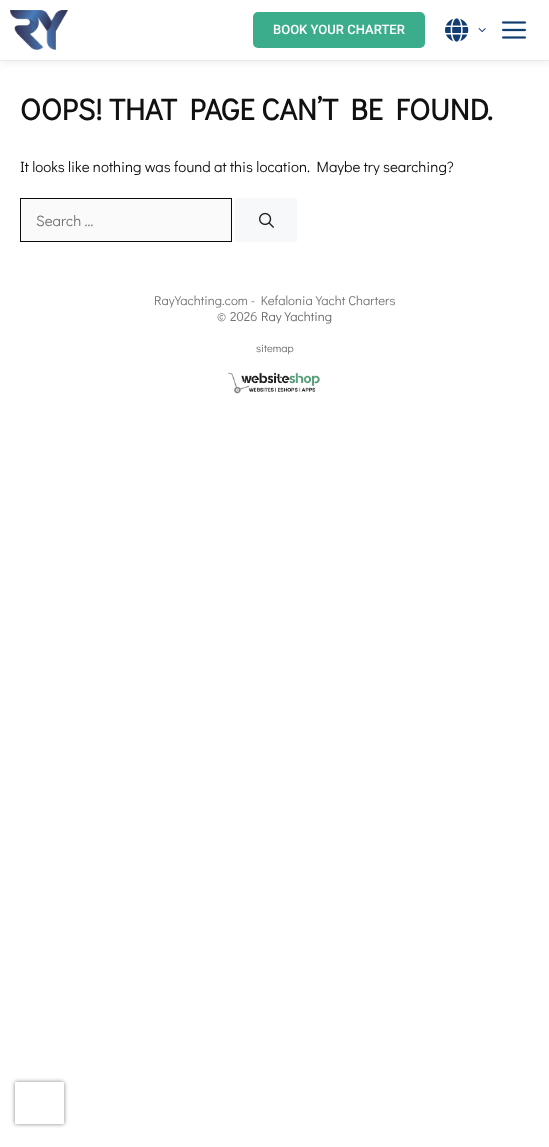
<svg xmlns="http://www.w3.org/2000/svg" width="549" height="1147">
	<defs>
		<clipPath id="clip1"><rect x="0" y="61" width="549" height="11" /></clipPath>
		<clipPath id="clip2"><path d="M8 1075H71V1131H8ZM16.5 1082H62.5C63.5 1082 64 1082.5 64 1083.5V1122.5C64 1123.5 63.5 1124 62.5 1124H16.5C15.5 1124 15 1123.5 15 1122.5V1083.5C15 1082.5 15.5 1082 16.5 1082Z" clip-rule="evenodd" /></clipPath>
	</defs>
	<rect width="100%" height="100%" fill="#FFFFFF" />
	<g clip-path="url(#clip1)">
		<rect x="1" y="1" width="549" height="61" fill="#EAEAEA" filter="blur(5px)" />
	</g>
	<rect x="0" y="60" width="549" height="1" fill="#EAEAEA" />
	<image x="10" y="10" width="58" height="40" href="assets/img1.png" />
	<rect x="253" y="12" width="172" height="36" rx="5" fill="#3CAD8C" />
	<text x="273" y="34" font-family="Roboto" font-size="13" font-weight="500" fill="#FFFFFF">BOOK YOUR CHARTER</text>
	<image x="445" y="18" width="24" height="24" href="assets/img2.png" />
	<image x="478" y="28" width="8" height="5" href="assets/img3.png" />
	<image x="502" y="21" width="24" height="18" href="assets/img4.png" />
	<text x="20" y="120" font-family="Didact Gothic" font-size="30" font-weight="700" fill="#111111">OOPS! THAT PAGE CAN’T BE FOUND.</text>
	<text x="20" y="172" font-family="Didact Gothic" font-size="15" fill="#111111">It looks like nothing was found at this location. Maybe try searching?</text>
	<rect x="20.5" y="198.5" width="211" height="43" fill="#FAFAFA" stroke="#0A0A0A" />
	<text x="36" y="226" font-family="Didact Gothic" font-size="15" fill="#757575">Search …</text>
	<rect x="235" y="198" width="62" height="44" fill="#F7F8F9" />
	<image x="259" y="212" width="15" height="16" href="assets/img5.png" />
	<g font-family="Didact Gothic" font-size="13" fill="#757575">
		<text x="154" y="305">RayYachting.com - Kefalonia Yacht Charters</text>
		<text x="217" y="321" word-spacing="1">© 2026</text>
	</g>
	<text x="261" y="321" font-family="Didact Gothic" font-size="13" fill="#686868">Ray Yachting</text>
	<text x="256" y="352" font-family="Didact Gothic" font-size="11" fill="#686868">sitemap</text>
	<image x="228" y="372" width="92" height="22" href="assets/img6.png" />
	<g clip-path="url(#clip2)">
		<rect x="15" y="1082" width="49" height="42" rx="1.5" fill="#808080" filter="blur(2px)" />
	</g>
</svg>
